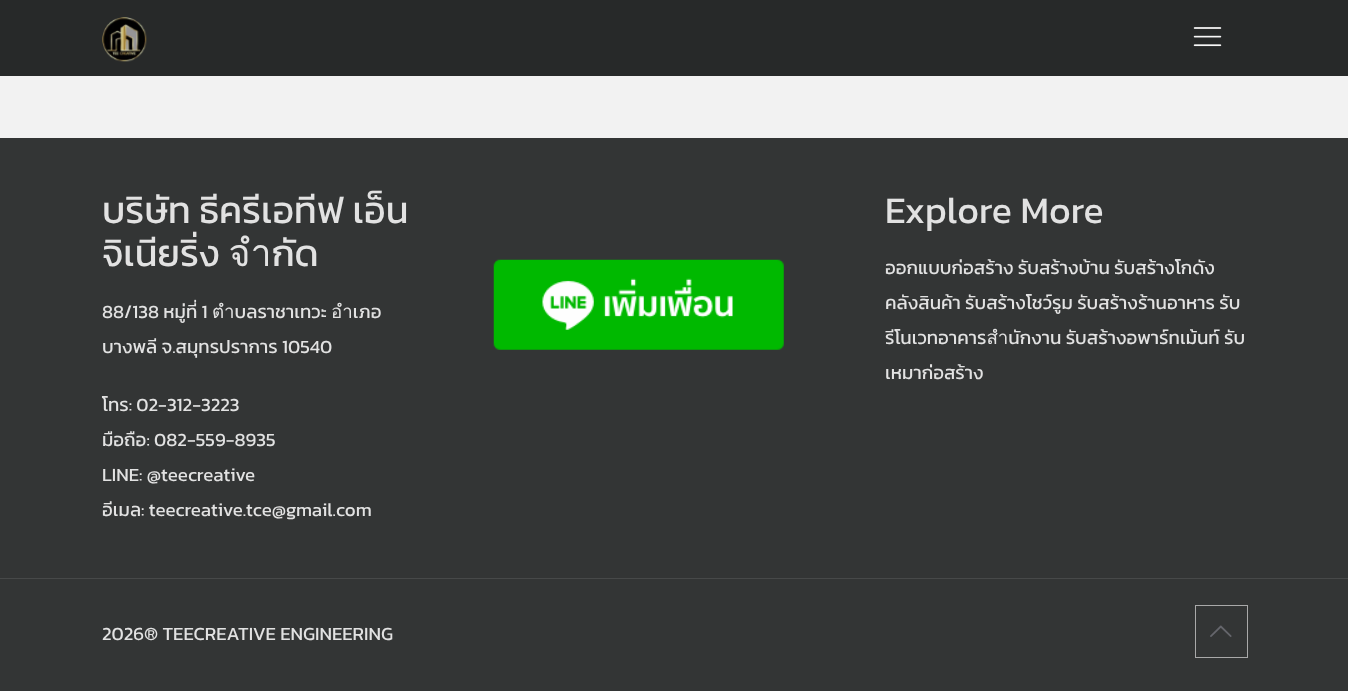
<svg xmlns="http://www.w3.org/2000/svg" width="1348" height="691">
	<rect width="100%" height="100%" fill="#F2F2F2" />
	<rect x="0" y="0" width="1348" height="76" fill="#272929" />
	<image x="102" y="17" width="45" height="45" href="assets/img1.png" />
	<image x="1193" y="27" width="29" height="20" href="assets/img2.png" />
	<rect x="0" y="138" width="1348" height="553" fill="#333535" />
	<g font-family="Kanit" font-size="37.5" fill="#E2E2E2">
		<text x="102" y="223">บริษัท ธีครีเอทีฟ เอ็น</text>
		<text x="102" y="266">จิเนียริ่ง จำกัด</text>
	</g>
	<g font-family="Kanit" font-size="18.75" fill="#E2E2E2">
		<text x="102" y="318">88/138 หมู่ที่ 1 ตำบลราชาเทวะ อำเภอ</text>
		<text x="102" y="353">บางพลี จ.สมุทรปราการ 10540</text>
		<text x="102" y="411">โทร: 02-312-3223</text>
		<text x="102" y="446">มือถือ: 082-559-8935</text>
		<text x="102" y="481">LINE: @teecreative</text>
		<text x="102" y="516">อีเมล: teecreative.tce@gmail.com</text>
	</g>
	<image x="493" y="259" width="291" height="91" href="assets/img3.png" />
	<text x="885" y="223" font-family="Kanit" font-size="37.5" fill="#E2E2E2">Explore More</text>
	<g font-family="Kanit" font-size="18.75" fill="#E2E2E2">
		<text x="885" y="274">ออกแบบก่อสร้าง รับสร้างบ้าน รับสร้างโกดัง</text>
		<text x="885" y="309">คลังสินค้า รับสร้างโชว์รูม รับสร้างร้านอาหาร รับ</text>
		<text x="885" y="344">รีโนเวทอาคารสำนักงาน รับสร้างอพาร์ทเม้นท์ รับ</text>
		<text x="885" y="379">เหมาก่อสร้าง</text>
	</g>
	<rect x="0" y="578" width="1348" height="1" fill="#474949" />
	<text x="102" y="640" font-family="Kanit" font-size="18.75" fill="#E2E2E2">2026® TEECREATIVE ENGINEERING</text>
	<rect x="1195.5" y="605.5" width="52" height="52" fill="none" stroke="#A9A9A9" />
	<image x="1210" y="625" width="22" height="12" href="assets/img4.png" />
</svg>
